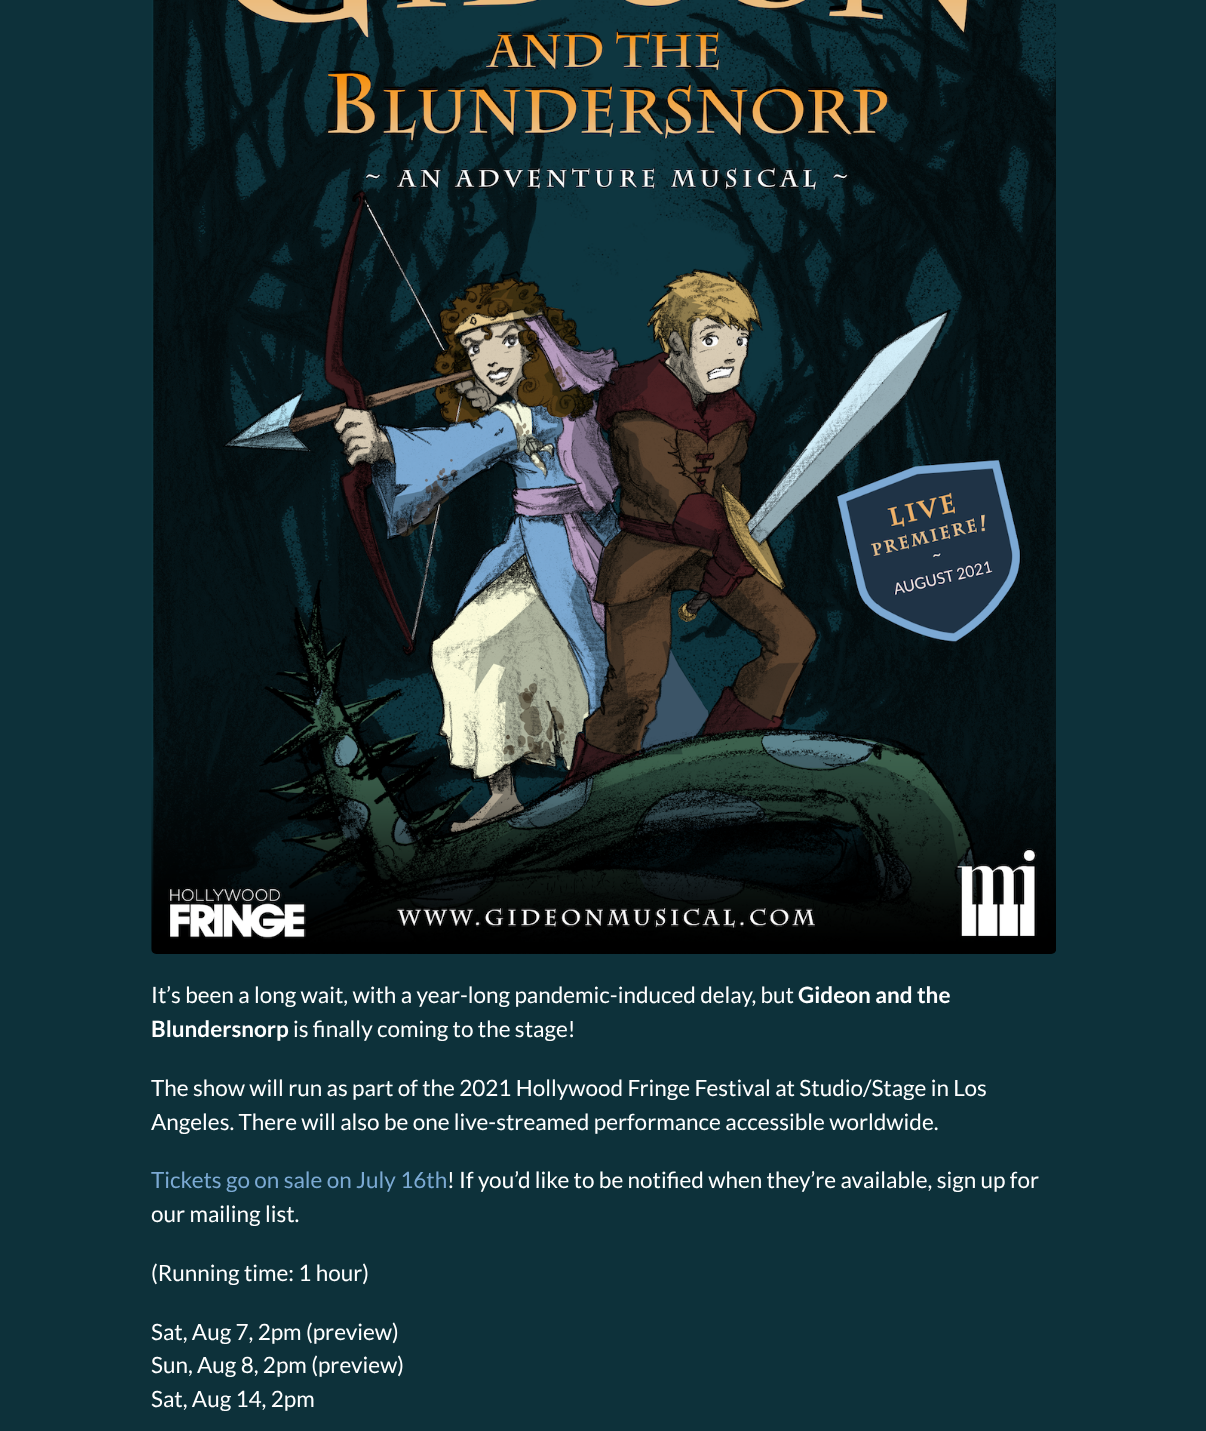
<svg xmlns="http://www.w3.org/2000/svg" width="1206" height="1431">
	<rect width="100%" height="100%" fill="#0D313A" />
	<image x="151" y="0" width="905" height="954" href="assets/img1.png" />
	<text x="151" y="1003" font-family="Lato" font-size="22.5" fill="#FFFFFF">It’s been a long wait, with a year-long pandemic-induced delay, but</text>
	<g font-family="Lato" font-size="22.5" font-weight="700" fill="#FFFFFF">
		<text x="798" y="1003">Gideon and the</text>
		<text x="151" y="1037">Blundersnorp</text>
	</g>
	<g font-family="Lato" font-size="22.5" fill="#FFFFFF">
		<text x="293" y="1037">is finally coming to the stage!</text>
		<text x="151" y="1096">The show will run as part of the 2021 Hollywood Fringe Festival at Studio/Stage in Los</text>
		<text x="151" y="1130">Angeles. There will also be one live-streamed performance accessible worldwide.</text>
	</g>
	<text x="151" y="1188" font-family="Lato" font-size="22.5" fill="#7CAAD4">Tickets go on sale on July 16th</text>
	<g font-family="Lato" font-size="22.5" fill="#FFFFFF">
		<text x="447" y="1188">! If you’d like to be notified when they’re available, sign up for</text>
		<text x="151" y="1222">our mailing list.</text>
		<text x="151" y="1281">(Running time: 1 hour)</text>
		<text x="151" y="1340">Sat, Aug 7, 2pm (preview)</text>
		<text x="151" y="1373">Sun, Aug 8, 2pm (preview)</text>
		<text x="151" y="1407">Sat, Aug 14, 2pm</text>
	</g>
</svg>
